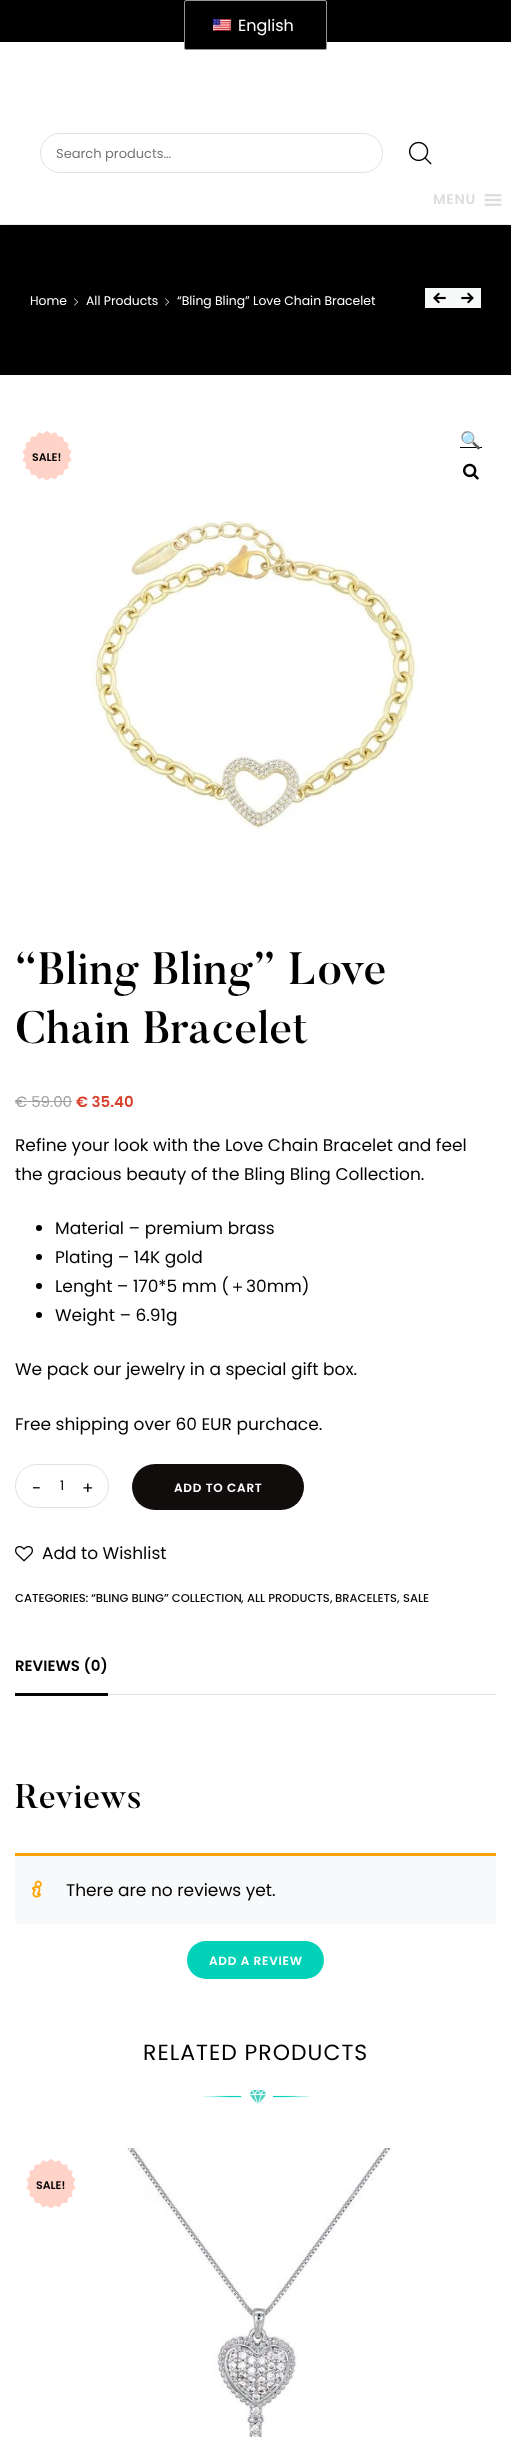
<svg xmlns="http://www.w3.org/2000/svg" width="511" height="2437">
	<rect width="100%" height="100%" fill="#FFFFFF" />
	<rect x="15" y="1693" width="93" height="3" fill="#030303" />
	<rect x="0" y="0" width="511" height="42" fill="#000000" />
	<rect x="184.5" y="0.5" width="142" height="49" rx="1.5" fill="#000000" stroke="#949494" />
	<image x="213" y="19" width="18" height="12" href="assets/img1.png" />
	<text x="238" y="31" font-family="Poppins" font-size="16" fill="#FFFFFF">English</text>
	<rect x="40.5" y="133.5" width="342" height="39" rx="19.5" fill="none" stroke="#E1E1E1" />
	<text x="56" y="158" font-family="Poppins" font-size="13" fill="#757575">Search products…</text>
	<image x="409" y="141" width="23" height="24" href="assets/img2.png" />
	<rect x="1" y="224" width="509" height="1" fill="#EBEBEB" />
	<text x="433" y="204" font-family="Poppins" font-size="14" font-weight="600" letter-spacing="0.75" fill="#DDDDDD">MENU</text>
	<image x="484" y="194" width="18" height="12" href="assets/img3.png" />
	<rect x="0" y="225" width="511" height="150" fill="#000000" />
	<text x="30" y="305" font-family="Poppins" font-size="12.4" fill="#FFFFFF">Home</text>
	<image x="74" y="298" width="4" height="8" href="assets/img4.png" />
	<text x="86" y="305" font-family="Poppins" font-size="12.4" fill="#FFFFFF">All Products</text>
	<image x="165" y="298" width="4" height="8" href="assets/img4.png" />
	<text x="177" y="305" font-family="Poppins" font-size="12.4" fill="#FFFFFF">“Bling Bling” Love Chain Bracelet</text>
	<rect x="425" y="288" width="56" height="20" fill="#F8FAFA" />
	<image x="433" y="292" width="13" height="12" href="assets/img5.png" />
	<image x="461" y="292" width="13" height="12" href="assets/img6.png" />
	<rect x="460" y="447" width="22" height="1" fill="#000000" />
	<text x="460" y="446" font-family="Noto Color Emoji" font-size="17" fill="#000000">🔍</text>
	<image x="463" y="463" width="16" height="17" href="assets/img7.png" />
	<image x="92" y="520" width="327" height="310" href="assets/img8.png" />
	<image x="22" y="431" width="50" height="50" href="assets/img9.png" />
	<text x="32" y="461" font-family="Poppins" font-size="11" font-weight="600" fill="#000000">SALE!</text>
	<g font-family="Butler" font-size="45.25" font-weight="500" letter-spacing="0.5" fill="#000000">
		<text x="15" y="984">“Bling Bling” Love</text>
		<text x="15" y="1043">Chain Bracelet</text>
	</g>
	<text x="15" y="1107" font-family="Poppins" font-size="15" fill="#9E9E9E">€ 59.00</text>
	<rect x="15" y="1101" width="57" height="1" fill="#9E9E9E" />
	<text x="76" y="1107" font-family="Poppins" font-size="15" font-weight="600" fill="#D7422D">€ 35.40</text>
	<g font-family="Poppins" font-size="17" fill="#000000">
		<text x="15" y="1151">Refine your look with the Love Chain Bracelet and feel</text>
		<text x="15" y="1180">the gracious beauty of the Bling Bling Collection.</text>
	</g>
	<circle cx="39" cy="1228" r="3" fill="#000000" />
	<text x="55" y="1234" font-family="Poppins" font-size="17" fill="#000000">Material – premium brass</text>
	<circle cx="39" cy="1257" r="3" fill="#000000" />
	<text x="55" y="1263" font-family="Poppins" font-size="17" fill="#000000">Plating – 14K gold</text>
	<circle cx="39" cy="1286" r="3" fill="#000000" />
	<text x="55" y="1292" font-family="Poppins" font-size="17" fill="#000000">Lenght – 170*5 mm (</text>
	<text x="229" y="1292" font-family="WenQuanYi Zen Hei" font-size="17" font-weight="500" fill="#000000">＋</text>
	<text x="246" y="1292" font-family="Poppins" font-size="17" fill="#000000">30mm)</text>
	<circle cx="39" cy="1315" r="3" fill="#000000" />
	<g font-family="Poppins" font-size="17" fill="#000000">
		<text x="55" y="1321">Weight – 6.91g</text>
		<text x="15" y="1375">We pack our jewelry in a special gift box.</text>
		<text x="15" y="1430">Free shipping over 60 EUR purchace.</text>
	</g>
	<rect x="15.5" y="1464.5" width="93" height="43" rx="21.5" fill="none" stroke="#E1E1E1" />
	<text x="60" y="1490" font-family="Poppins" font-size="13" fill="#000000">1</text>
	<g font-family="Poppins" font-size="17" fill="#000000">
		<text x="32" y="1494">-</text>
		<text x="82" y="1494">+</text>
	</g>
	<rect x="132" y="1464" width="172" height="46" rx="23" fill="#110D0D" />
	<text x="174" y="1492" font-family="Poppins" font-size="12" font-weight="600" letter-spacing="0.75" fill="#FFFFFF">ADD TO CART</text>
	<image x="15" y="1546" width="18" height="16" href="assets/img10.png" />
	<text x="42" y="1559" font-family="Poppins" font-size="17" fill="#000000">Add to Wishlist</text>
	<text x="15" y="1602" font-family="Poppins" font-size="11.5" font-weight="500" fill="#000000">CATEGORIES:</text>
	<text x="91" y="1602" font-family="Poppins" font-size="11.5" font-weight="500" fill="#090A0A">“BLING BLING” COLLECTION</text>
	<text x="241" y="1602" font-family="Poppins" font-size="11.5" font-weight="500" fill="#000000">,</text>
	<text x="247" y="1602" font-family="Poppins" font-size="11.5" font-weight="500" fill="#090A0A">ALL PRODUCTS</text>
	<text x="330" y="1602" font-family="Poppins" font-size="11.5" font-weight="500" fill="#000000">,</text>
	<text x="335" y="1602" font-family="Poppins" font-size="11.5" font-weight="500" fill="#090A0A">BRACELETS</text>
	<text x="397" y="1602" font-family="Poppins" font-size="11.5" font-weight="500" fill="#000000">,</text>
	<text x="403" y="1602" font-family="Poppins" font-size="11.5" font-weight="500" fill="#090A0A">SALE</text>
	<rect x="108" y="1694" width="388" height="1" fill="#E1E1E1" />
	<text x="15" y="1671" font-family="Poppins" font-size="15" font-weight="600" fill="#000000">REVIEWS (0)</text>
	<text x="15" y="1808" font-family="Butler" font-size="34" font-weight="500" letter-spacing="0.5" fill="#000000">Reviews</text>
	<rect x="15" y="1856" width="481" height="68" fill="#F8F9FA" />
	<rect x="15" y="1853" width="481" height="3" fill="#FDA403" />
	<image x="32" y="1880" width="10" height="18" href="assets/img11.png" />
	<text x="66" y="1896" font-family="Poppins" font-size="17" fill="#000000">There are no reviews yet.</text>
	<rect x="187" y="1941" width="137" height="38" rx="19" fill="#00D1B7" />
	<text x="209" y="1965" font-family="Poppins" font-size="12" font-weight="600" letter-spacing="0.75" fill="#FFFFFF">ADD A REVIEW</text>
	<text x="143" y="2060" font-family="Poppins" font-size="22" letter-spacing="1" fill="#000000">RELATED PRODUCTS</text>
	<image x="203" y="2090" width="107" height="14" href="assets/img12.png" />
	<image x="26" y="2159" width="50" height="50" href="assets/img9.png" />
	<text x="36" y="2189" font-family="Poppins" font-size="11" font-weight="600" fill="#000000">SALE!</text>
	<image x="126" y="2148" width="269" height="289" href="assets/img13.png" />
</svg>
